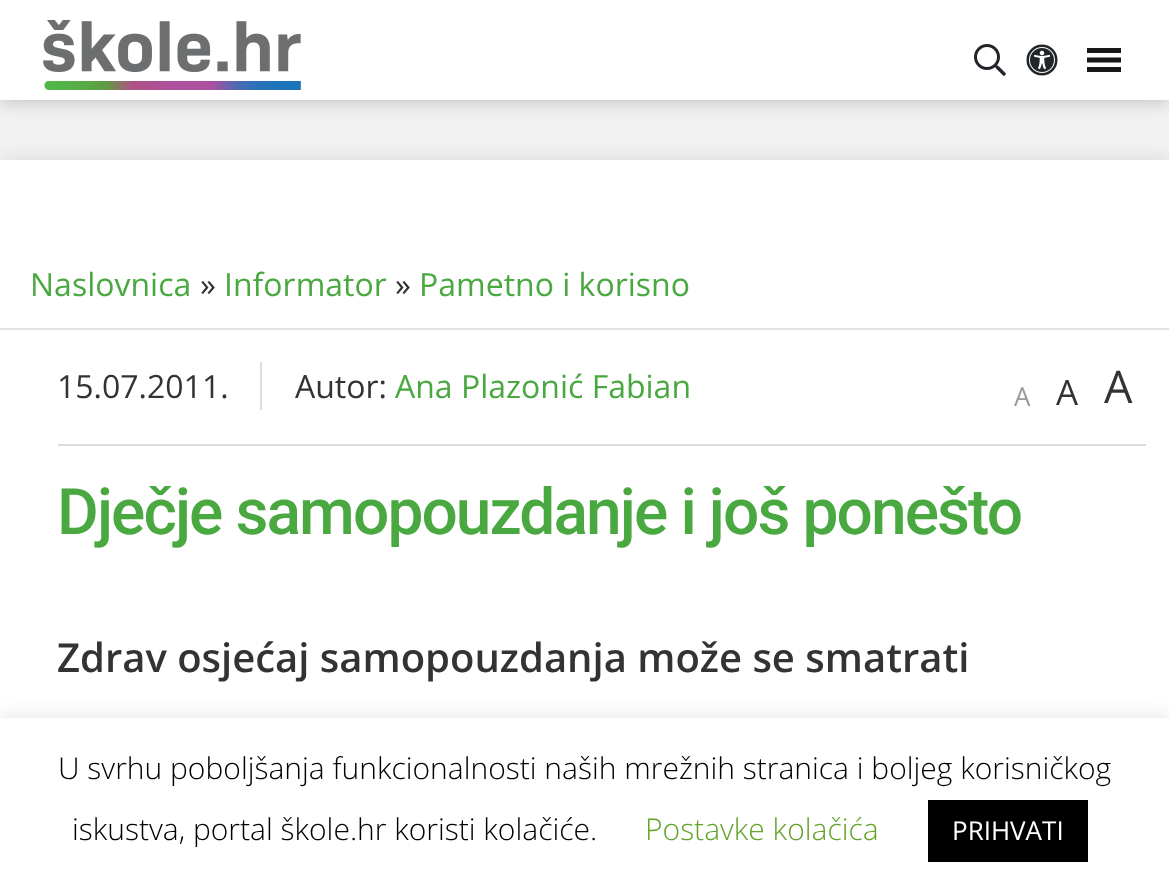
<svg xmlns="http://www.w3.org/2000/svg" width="1169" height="896">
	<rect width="100%" height="100%" fill="#F2F2F2" />
	<rect x="0" y="0" width="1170" height="100" fill="#000000" fill-opacity="0.25" filter="blur(10px)" />
	<rect x="0" y="0" width="1169" height="100" fill="#FFFFFF" />
	<image x="43" y="20" width="258" height="70" href="assets/img1.png" />
	<image x="974" y="44" width="32" height="32" href="assets/img2.png" />
	<image x="1026" y="44" width="32" height="32" href="assets/img3.png" />
	<path d="M1087 72H1121V67H1087ZM1087 48V53H1121V48ZM1087 62.5H1121V57.5H1087Z" fill="#191919" />
	<rect x="0" y="164" width="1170" height="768" fill="#000000" fill-opacity="0.15" filter="blur(12px)" />
	<rect x="0" y="160" width="1169" height="558" fill="#FFFFFF" />
	<rect x="0" y="328" width="1169" height="2" fill="#E3E3E3" />
	<text x="30" y="296" font-family="Open Sans" font-size="32" fill="#49A840">Naslovnica</text>
	<text x="200" y="296" font-family="Open Sans" font-size="32" fill="#333333">»</text>
	<text x="224" y="296" font-family="Open Sans" font-size="32" fill="#49A840">Informator</text>
	<text x="395" y="296" font-family="Open Sans" font-size="32" fill="#333333">»</text>
	<text x="419" y="296" font-family="Open Sans" font-size="32" fill="#49A840">Pametno i korisno</text>
	<rect x="58" y="444" width="1088" height="2" fill="#DCDCDC" />
	<rect x="260" y="362" width="2" height="48" fill="#DCDCDC" />
	<g font-family="Open Sans" font-size="32" fill="#333333">
		<text x="57" y="398">15.07.2011.</text>
		<text x="295" y="398">Autor:</text>
	</g>
	<text x="395" y="398" font-family="Open Sans" font-size="32" fill="#49A840">Ana Plazonić Fabian</text>
	<text x="1014" y="406" font-family="Open Sans" font-size="26" fill="#999999">A</text>
	<text x="1056" y="405" font-family="Open Sans" font-size="35" fill="#333333">A</text>
	<text x="1104" y="403" font-family="Open Sans" font-size="45" fill="#333333">A</text>
	<text x="57" y="534" font-family="Roboto" font-size="64" font-weight="500" letter-spacing="-1.9" fill="#49A840">Dječje samopouzdanje i još ponešto</text>
	<text x="57" y="672" font-family="Open Sans" font-size="40" font-weight="600" fill="#333333">Zdrav osjećaj samopouzdanja može se smatrati</text>
	<rect x="0" y="716" width="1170" height="178" fill="#ACABAB" fill-opacity="0.3" filter="blur(10px)" />
	<rect x="0" y="718" width="1169" height="178" fill="#FFFFFF" />
	<g font-family="Open Sans" font-size="30" font-weight="300" fill="#000000">
		<text x="58" y="779">U svrhu poboljšanja funkcionalnosti naših mrežnih stranica i boljeg korisničkog</text>
		<text x="72" y="840">iskustva, portal škole.hr koristi kolačiće.</text>
	</g>
	<text x="645" y="840" font-family="Open Sans" font-size="30" font-weight="300" fill="#62A329">Postavke kolačića</text>
	<rect x="928" y="800" width="160" height="62" fill="#000000" />
	<text x="952" y="840" font-family="Open Sans" font-size="26" fill="#FFFFFF">PRIHVATI</text>
</svg>
